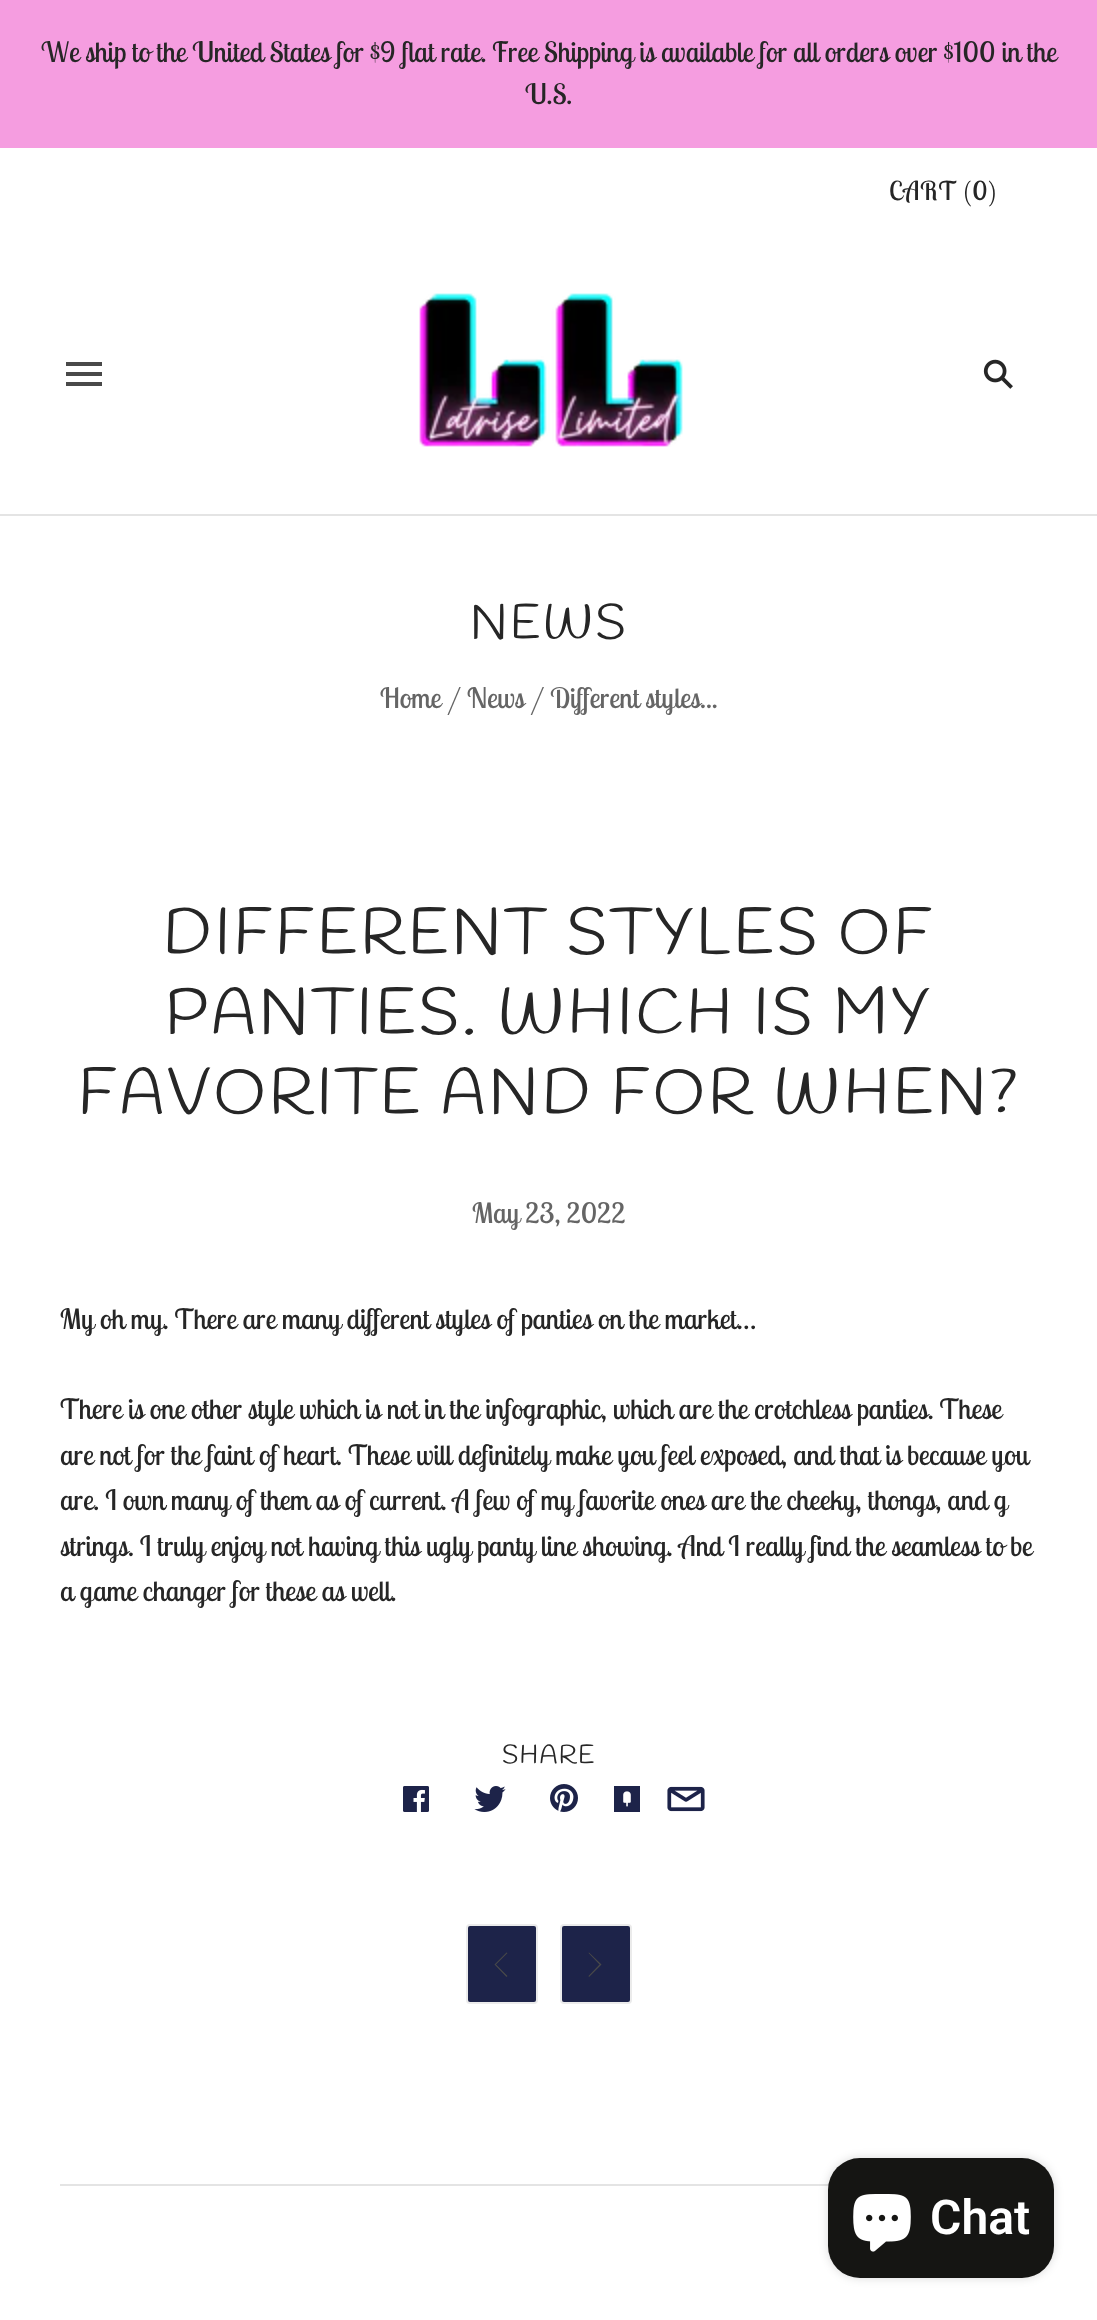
<svg xmlns="http://www.w3.org/2000/svg" width="1097" height="2320">
	<style>*{font-kerning:none!important;font-variant-ligatures:none!important}</style>
	<rect width="100%" height="100%" fill="#FFFFFF" />
	<rect x="0" y="0" width="1097" height="148" fill="#F59DE0" />
	<g font-family="Lobster Two" font-size="28" fill="#262626">
		<text x="41" y="62">We ship to the United States for $9 flat rate. Free Shipping is available for all orders over $100 in the</text>
		<text x="525" y="104">U.S.</text>
	</g>
	<rect x="0" y="514" width="1097" height="2" fill="#E4E4E4" />
	<text x="889" y="200" font-family="Lobster Two" font-size="26" letter-spacing="1.25" fill="#262626">CART (0)</text>
	<path d="M66 362H102V366H66ZM66 372H102V376H66ZM66 382H102V386H66Z" fill="#494949" fill-rule="evenodd" />
	<image x="419" y="293" width="264" height="154" href="assets/img1.png" />
	<image x="983" y="359" width="30" height="30" href="assets/img2.png" />
	<text x="470" y="638" font-family="Handlee" font-size="48" letter-spacing="2.5" fill="#262626">NEWS</text>
	<text x="380" y="708" font-family="Lobster Two" font-size="28" fill="#656565">Home / News / Different styles...</text>
	<rect x="60" y="2184" width="769" height="2" fill="#E4E4E4" />
	<g font-family="Handlee" font-size="64" letter-spacing="3.2" fill="#262626">
		<text x="163" y="953">DIFFERENT STYLES OF</text>
		<text x="165" y="1033">PANTIES. WHICH IS MY</text>
		<text x="78" y="1113">FAVORITE AND FOR WHEN?</text>
	</g>
	<text x="472" y="1223" font-family="Lobster Two" font-size="28" fill="#656565">May 23, 2022</text>
	<g font-family="Lobster Two" font-size="28" fill="#262626">
		<text x="60" y="1329">My oh my. There are many different styles of panties on the market…</text>
		<text x="60" y="1419">There is one other style which is not in the infographic, which are the crotchless panties. These</text>
		<text x="60" y="1465">are not for the faint of heart. These will definitely make you feel exposed, and that is because you</text>
		<text x="60" y="1510">are. I own many of them as of current. A few of my favorite ones are the cheeky, thongs, and g</text>
		<text x="60" y="1556">strings. I truly enjoy not having this ugly panty line showing. And I really find the seamless to be</text>
		<text x="60" y="1601">a game changer for these as well.</text>
	</g>
	<text x="502" y="1763" font-family="Handlee" font-size="26" letter-spacing="1.25" fill="#262626">SHARE</text>
	<image x="403" y="1786" width="26" height="26" href="assets/img3.png" />
	<image x="474" y="1786" width="32" height="26" href="assets/img4.png" />
	<image x="550" y="1784" width="28" height="28" href="assets/img5.png" />
	<image x="614" y="1786" width="26" height="26" href="assets/img6.png" />
	<image x="667" y="1786" width="38" height="26" href="assets/img7.png" />
	<rect x="467" y="1925" width="70" height="78" rx="3" fill="#1D2349" stroke="#EBEBEB" stroke-width="2" />
	<path d="M495 1964L494.5 1964.5L506.5 1977L507.5 1976L495.5 1964V1965L507.5 1953L506.5 1952.5Z" fill="#494949" />
	<rect x="561" y="1925" width="70" height="78" rx="3" fill="#1D2349" stroke="#EBEBEB" stroke-width="2" />
	<path d="M601 1964L601.5 1964.5L589 1977L588.5 1976L600 1964V1965L588.5 1953L589 1952.5Z" fill="#494949" />
	<rect x="828" y="2158" width="226" height="120" rx="32" fill="#000000" fill-opacity="0.15" filter="blur(5px)" />
	<rect x="828" y="2158" width="226" height="120" rx="32" fill="#151513" />
	<image x="853" y="2194" width="58" height="58" href="assets/img8.png" />
	<text x="930" y="2234" font-family="Roboto" font-size="48" font-weight="600" fill="#FFFFFF">Chat</text>
</svg>
